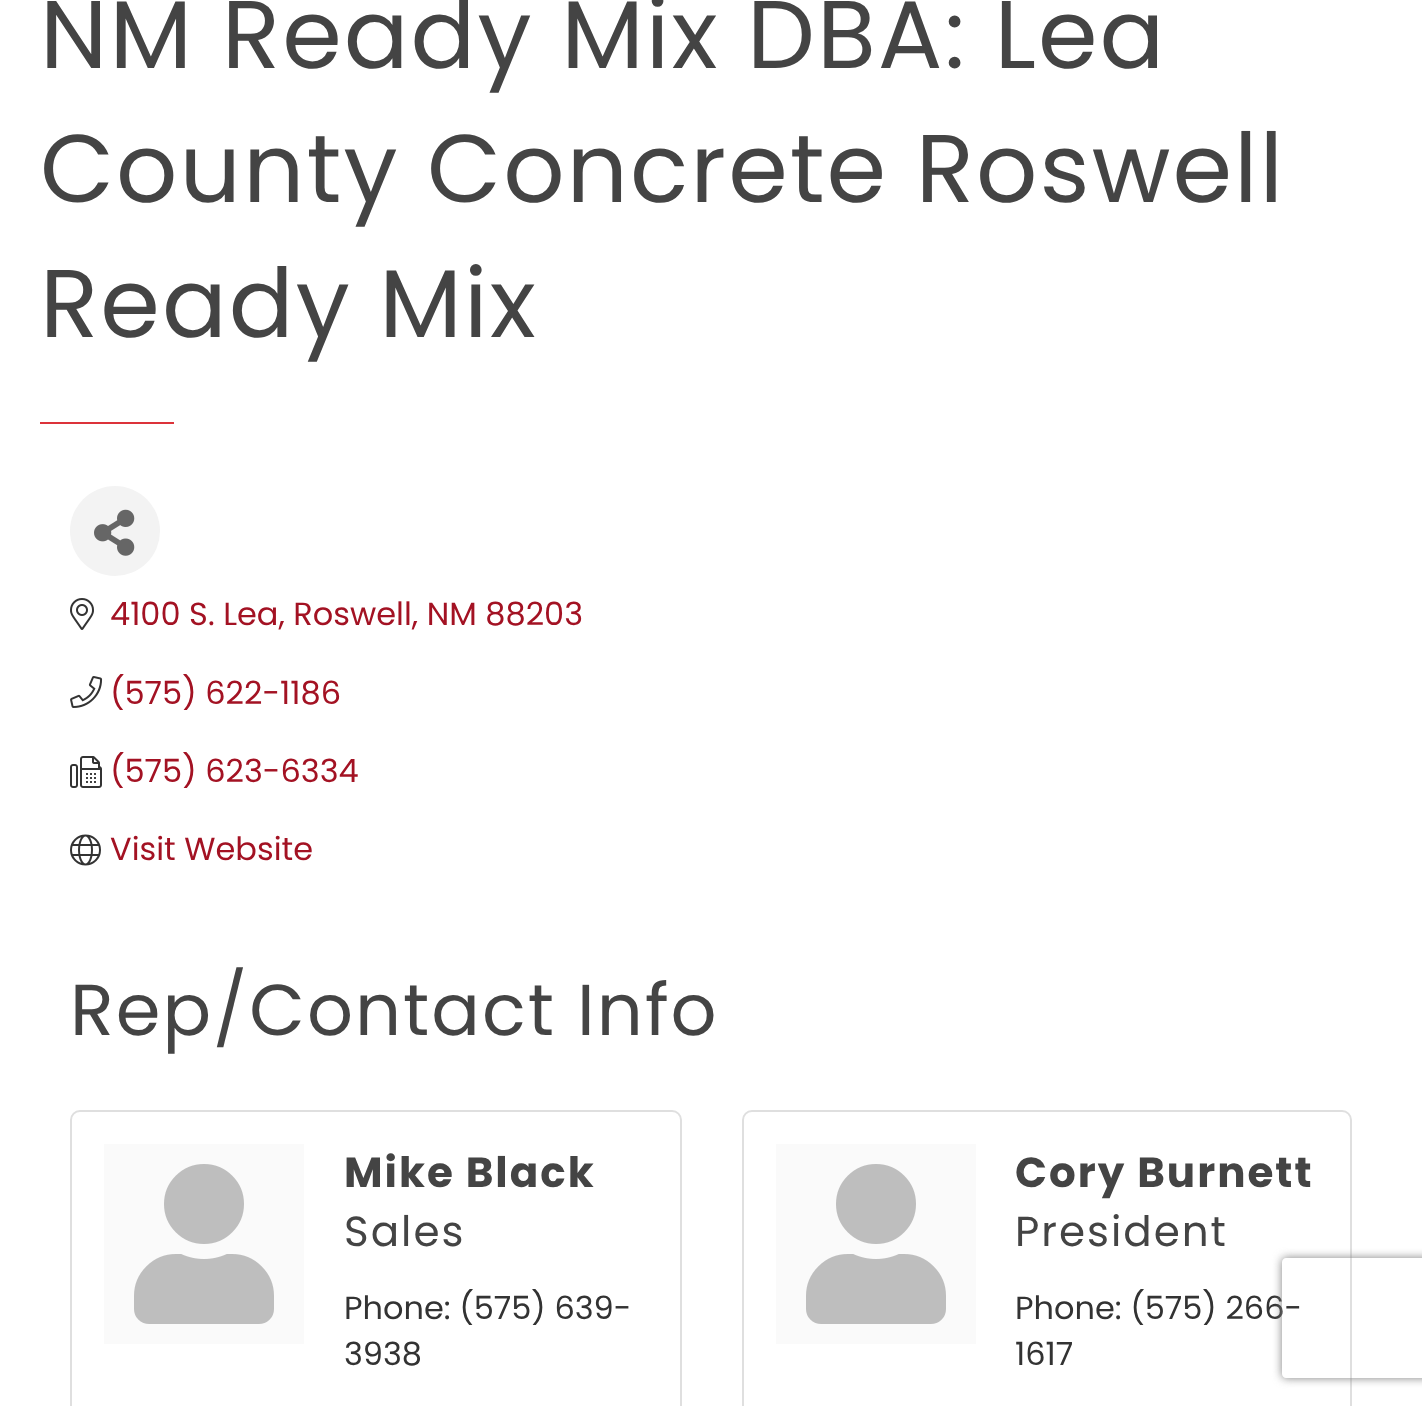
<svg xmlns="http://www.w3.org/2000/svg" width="1422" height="1406">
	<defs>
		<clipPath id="clip1"><path d="M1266 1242H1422V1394H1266ZM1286 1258H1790C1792 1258 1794 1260 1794 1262V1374C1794 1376 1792 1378 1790 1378H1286C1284 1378 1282 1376 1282 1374V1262C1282 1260 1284 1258 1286 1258Z" clip-rule="evenodd" /></clipPath>
	</defs>
	<rect width="100%" height="100%" fill="#FFFFFF" />
	<g font-family="Poppins" font-size="96" letter-spacing="2" fill="#444444">
		<text x="40" y="68">NM Ready Mix DBA: Lea</text>
		<text x="40" y="202">County Concrete Roswell</text>
		<text x="40" y="337">Ready Mix</text>
	</g>
	<rect x="40" y="422" width="134" height="2" fill="#DC333A" />
	<circle cx="115" cy="531" r="45" fill="#F3F3F3" />
	<image x="94" y="509" width="41" height="47" href="assets/img1.png" />
	<image x="70" y="598" width="24" height="32" href="assets/img2.png" />
	<text x="110" y="625" font-family="Poppins" font-size="32" fill="#A31223">4100 S. Lea, Roswell, NM 88203</text>
	<image x="70" y="676" width="33" height="32" href="assets/img3.png" />
	<text x="110" y="704" font-family="Poppins" font-size="32" fill="#A31223">(575) 622-1186</text>
	<image x="70" y="756" width="32" height="32" href="assets/img4.png" />
	<text x="110" y="782" font-family="Poppins" font-size="32" fill="#A31223">(575) 623-6334</text>
	<image x="70" y="834" width="31" height="32" href="assets/img5.png" />
	<text x="110" y="860" font-family="Poppins" font-size="32" fill="#A31223">Visit Website</text>
	<text x="70" y="1035" font-family="Poppins" font-size="72" letter-spacing="2" fill="#444444">Rep/Contact Info</text>
	<rect x="71" y="1111" width="610" height="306" rx="9" fill="none" stroke="#DFDFDF" stroke-width="2" />
	<rect x="104" y="1144" width="200" height="200" fill="#FAFAFA" />
	<image x="134" y="1164" width="140" height="160" href="assets/img6.png" />
	<text x="344" y="1187" font-family="Poppins" font-size="42" font-weight="700" letter-spacing="2" fill="#444444">Mike Black</text>
	<text x="344" y="1246" font-family="Poppins" font-size="42" letter-spacing="2" fill="#444444">Sales</text>
	<g font-family="Poppins" font-size="32" fill="#333333">
		<text x="344" y="1319">Phone: (575) 639-</text>
		<text x="344" y="1365">3938</text>
	</g>
	<rect x="743" y="1111" width="608" height="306" rx="9" fill="none" stroke="#DFDFDF" stroke-width="2" />
	<rect x="776" y="1144" width="200" height="200" fill="#FAFAFA" />
	<image x="806" y="1164" width="140" height="160" href="assets/img6.png" />
	<text x="1015" y="1187" font-family="Poppins" font-size="42" font-weight="700" letter-spacing="2" fill="#444444">Cory Burnett</text>
	<text x="1015" y="1246" font-family="Poppins" font-size="42" letter-spacing="2" fill="#444444">President</text>
	<g font-family="Poppins" font-size="32" fill="#333333">
		<text x="1015" y="1319">Phone: (575) 266-</text>
		<text x="1015" y="1365">1617</text>
	</g>
	<g clip-path="url(#clip1)">
		<rect x="1282" y="1258" width="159" height="120" rx="4" fill="#808080" filter="blur(5px)" />
	</g>
</svg>
